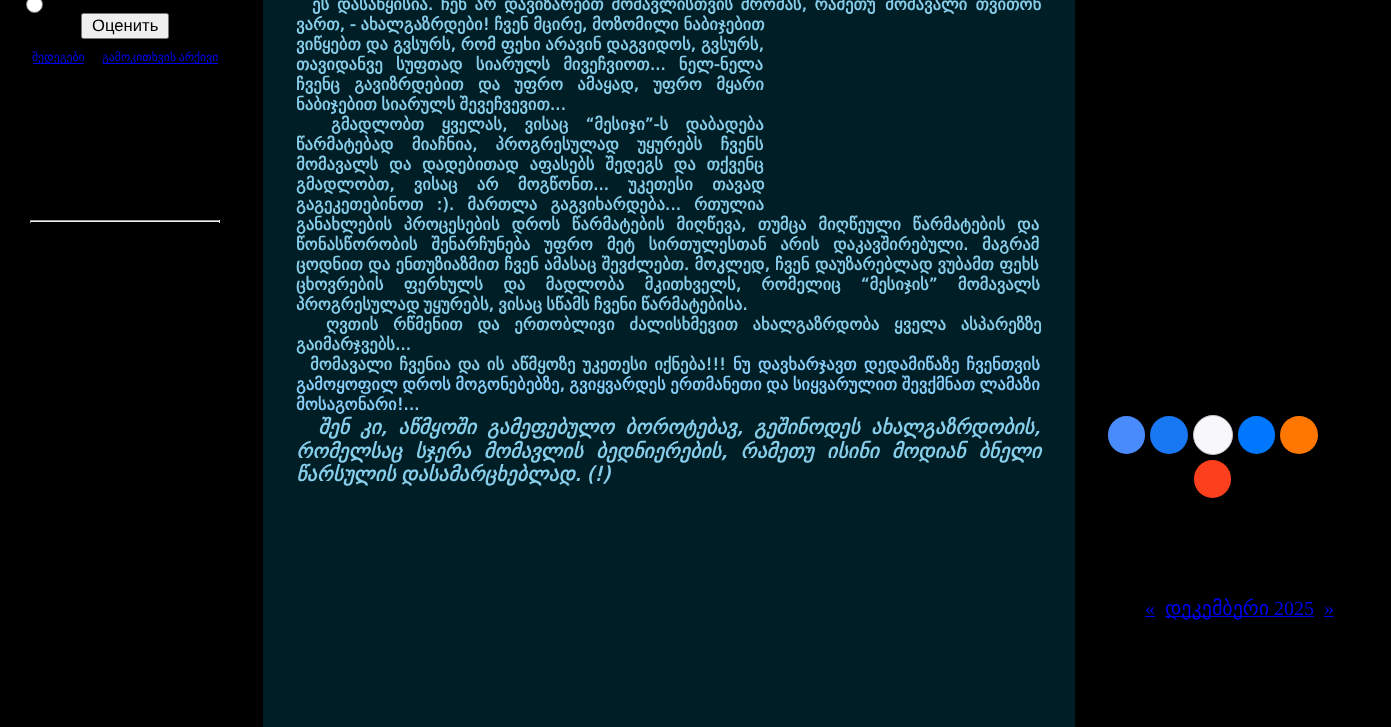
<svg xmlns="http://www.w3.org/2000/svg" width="1391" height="727">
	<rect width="100%" height="100%" fill="#000000" />
	<circle cx="34.5" cy="4.5" r="8" fill="#FFFFFF" stroke="#767676" />
	<rect x="81.5" y="13.5" width="87" height="25" rx="2" fill="#EFEFEF" stroke="#767676" />
	<text x="92" y="31" font-family="Liberation Sans" font-size="16.65" fill="#000000">Оценить</text>
	<rect x="33" y="63" width="51" height="1" fill="#0000EE" />
	<text x="32" y="61" font-family="DejaVu Sans" font-size="11.75" fill="#0000EE">შედეგები</text>
	<rect x="103" y="63" width="115" height="1" fill="#0000EE" />
	<text x="102" y="61" word-spacing="-1" font-family="DejaVu Sans" font-size="11.75" fill="#0000EE">გამოკითხვის არქივი</text>
	<rect x="30" y="220" width="190" height="1" fill="#9F9F9F" />
	<rect x="219" y="220" width="1" height="3" fill="#EEEEEE" />
	<rect x="30" y="221" width="190" height="1" fill="#EEEEEE" />
	<rect x="30" y="220" width="1" height="3" fill="#9F9F9F" />
	<rect x="263" y="0" width="812" height="727" fill="#001E26" />
	<g font-family="DejaVu Sans" font-size="16.65" font-weight="700" fill="#87CEEB">
		<text x="312" y="10" word-spacing="2.5">ეს დასაწყისია. ჩენ არ დავიზარებთ მომავლისთვის შრომას, რამეთუ</text>
		<text x="885" y="10" word-spacing="3">მომავალი თვითონ</text>
		<text x="296" y="30" word-spacing="-0.5">ვართ, - ახალგაზრდები! ჩვენ მცირე, მოზომილი ნაბიჯებით</text>
		<text x="296" y="50" word-spacing="-0.25">ვიწყებთ და გვსურს, რომ ფეხი არავინ დაგვიდოს, გვსურს,</text>
		<text x="296" y="70" word-spacing="8">თავიდანვე სუფთად სიარულს მივეჩვიოთ... ნელ-ნელა</text>
		<text x="296" y="90" word-spacing="9">ჩვენც გავიზრდებით და უფრო ამაყად, უფრო მყარი</text>
		<text x="296" y="110" word-spacing="-1">ნაბიჯებით სიარულს შევეჩვევით...</text>
		<text x="331" y="130" word-spacing="12">გმადლობთ ყველას, ვისაც “მესიჯი”-ს დაბადება</text>
		<text x="296" y="150" word-spacing="13">წარმატებად მიაჩნია, პროგრესულად უყურებს ჩვენს</text>
		<text x="296" y="170" word-spacing="5.5">მომავალს და დადებითად აფასებს შედეგს და თქვენც</text>
		<text x="296" y="190" word-spacing="14">გმადლობთ, ვისაც არ მოგწონთ... უკეთესი თავად</text>
		<text x="296" y="210" word-spacing="8">გაგეკეთებინოთ :). მართლა გაგვიხარდება... რთულია</text>
		<text x="296" y="230" word-spacing="6.5">განახლების პროცესების დროს წარმატების მიღწევა, თუმცა მიღწეული წარმატების და</text>
		<text x="296" y="250" word-spacing="8.5">წონასწორობის შენარჩუნება უფრო მეტ სირთულესთან არის დაკავშირებული. მაგრამ</text>
		<text x="296" y="270">ცოდნით და ენთუზიაზმით ჩვენ ამასაც შევძლებთ. მოკლედ, ჩვენ დაუზარებლად ვუბამთ ფეხს</text>
		<text x="296" y="290" word-spacing="15">ცხოვრების ფერხულს და მადლობა მკითხველს, რომელიც “მესიჯის” მომავალს</text>
		<text x="296" y="310" word-spacing="-1">პროგრესულად უყურებს, ვისაც სწამს ჩვენი წარმატებისა.</text>
		<text x="326" y="330" word-spacing="9.5">ღვთის რწმენით და ერთობლივი ძალისხმევით ახალგაზრდობა ყველა ასპარეზზე</text>
		<text x="296" y="350">გაიმარჯვებს...</text>
		<text x="310" y="370" word-spacing="1.75">მომავალი ჩვენია და ის აწმყოზე უკეთესი იქნება!!!</text>
	</g>
	<g font-family="DejaVu Sans" font-size="16.65" font-weight="700" fill="#87CEFA">
		<text x="733" y="370" word-spacing="2">ნუ დავხარჯავთ დედამიწაზე ჩვენთვის</text>
		<text x="296" y="390" word-spacing="-0.75">გამოყოფილ დროს მოგონებებზე, გვიყვარდეს ერთმანეთი და სიყვარულით შევქმნათ ლამაზი</text>
		<text x="296" y="410">მოსაგონარი!...</text>
	</g>
	<g font-family="DejaVu Sans" font-size="20" font-weight="700" font-style="italic" fill="#87CEEB">
		<text x="318" y="434" word-spacing="4.75">შენ კი, აწმყოში გამეფებულო ბოროტებავ, გეშინოდეს ახალგაზრდობის,</text>
		<text x="296" y="458" word-spacing="6.75">რომელსაც სჯერა მომავლის ბედნიერების, რამეთუ ისინი მოდიან ბნელი</text>
		<text x="296" y="481" word-spacing="-1">წარსულის დასამარცხებლად. (!)</text>
	</g>
	<rect x="1108" y="416" width="37" height="38" rx="18.5" fill="#498BFA" />
	<circle cx="1169" cy="435" r="19" fill="#1877F2" />
	<circle cx="1213" cy="435" r="19.5" fill="#F8F8FC" stroke="#C4C4C4" />
	<rect x="1238" y="416" width="37" height="38" rx="18.5" fill="#0077FF" />
	<circle cx="1299" cy="435" r="19" fill="#FF7700" />
	<rect x="1194" y="460" width="37" height="38" rx="18.5" fill="#FC3F1D" />
	<text x="1145" y="615" font-family="Liberation Serif" font-size="20" fill="#0000EE">«</text>
	<rect x="1145" y="616" width="10" height="1" fill="#0000EE" />
	<rect x="1165" y="616" width="149" height="1" fill="#0000EE" />
	<text x="1165" y="615" font-family="DejaVu Sans" font-size="20" fill="#0000EE">დეკემბერი</text>
	<g font-family="Liberation Serif" font-size="20" fill="#0000EE">
		<text x="1274" y="615">2025</text>
		<text x="1324" y="615">»</text>
	</g>
	<rect x="1324" y="616" width="10" height="1" fill="#0000EE" />
</svg>
